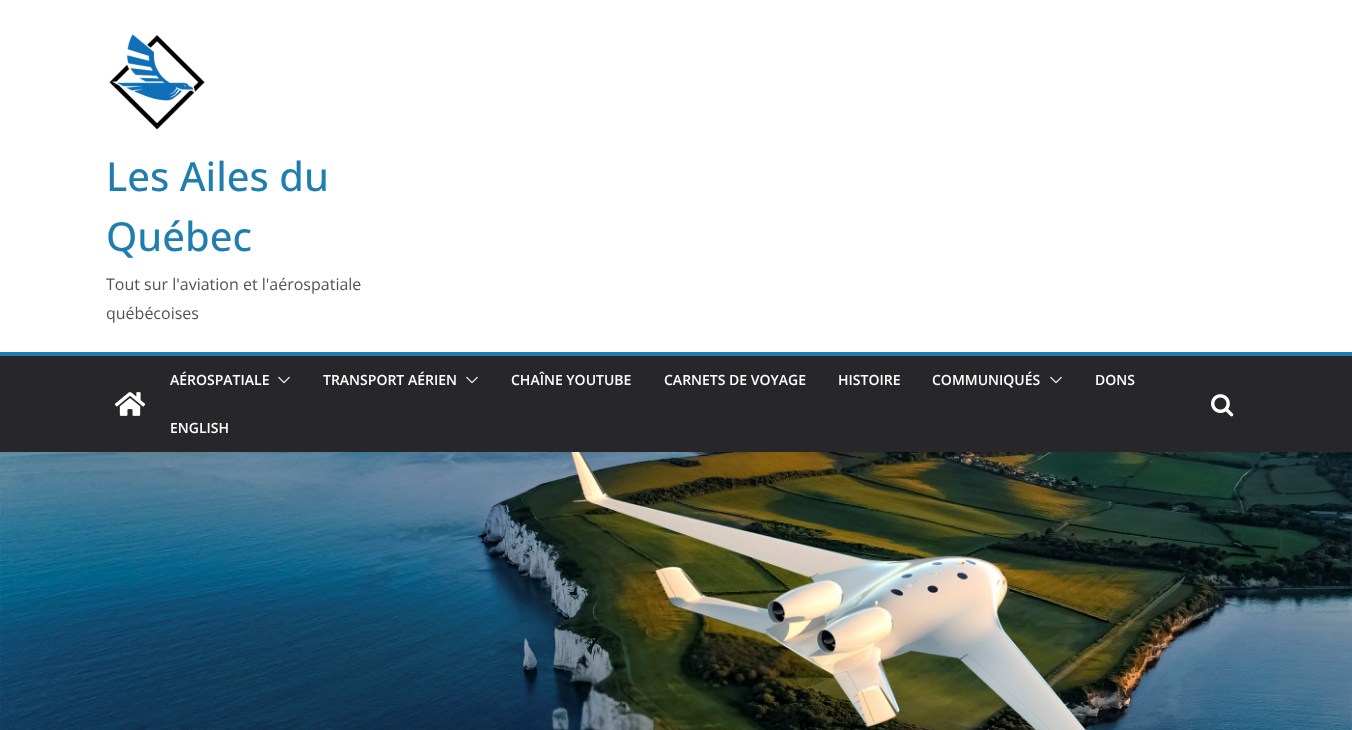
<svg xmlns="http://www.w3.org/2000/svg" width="1352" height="730">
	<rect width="100%" height="100%" fill="#FFFFFF" />
	<image x="109" y="34" width="96" height="96" href="assets/img1.png" />
	<g font-family="Open Sans" font-size="40" font-weight="500" fill="#207DAF">
		<text x="106" y="191">Les Ailes du</text>
		<text x="106" y="251">Québec</text>
	</g>
	<g font-family="Open Sans" font-size="16" fill="#52525B">
		<text x="106" y="290">Tout sur l'aviation et l'aérospatiale</text>
		<text x="106" y="319">québécoises</text>
	</g>
	<rect x="0" y="356" width="1352" height="96" fill="#27272A" />
	<rect x="0" y="352" width="1352" height="4" fill="#207DAF" />
	<image x="114" y="392" width="32" height="24" href="assets/img2.png" />
	<text x="170" y="385" font-family="Open Sans" font-size="14" font-weight="600" fill="#FFFFFF">AÉROSPATIALE</text>
	<image x="278" y="376" width="12" height="8" href="assets/img3.png" />
	<text x="323" y="385" font-family="Open Sans" font-size="14" font-weight="600" fill="#FFFFFF">TRANSPORT AÉRIEN</text>
	<image x="466" y="376" width="12" height="8" href="assets/img3.png" />
	<g font-family="Open Sans" font-size="14" font-weight="600" fill="#FFFFFF">
		<text x="511" y="385">CHAÎNE YOUTUBE</text>
		<text x="664" y="385">CARNETS DE VOYAGE</text>
		<text x="838" y="385">HISTOIRE</text>
		<text x="932" y="385">COMMUNIQUÉS</text>
	</g>
	<image x="1050" y="376" width="12" height="8" href="assets/img3.png" />
	<g font-family="Open Sans" font-size="14" font-weight="600" fill="#FFFFFF">
		<text x="1095" y="385">DONS</text>
		<text x="170" y="433">ENGLISH</text>
	</g>
	<image x="1211" y="394" width="23" height="23" href="assets/img4.png" />
	<image x="0" y="452" width="1352" height="278" href="assets/img5.png" />
</svg>
